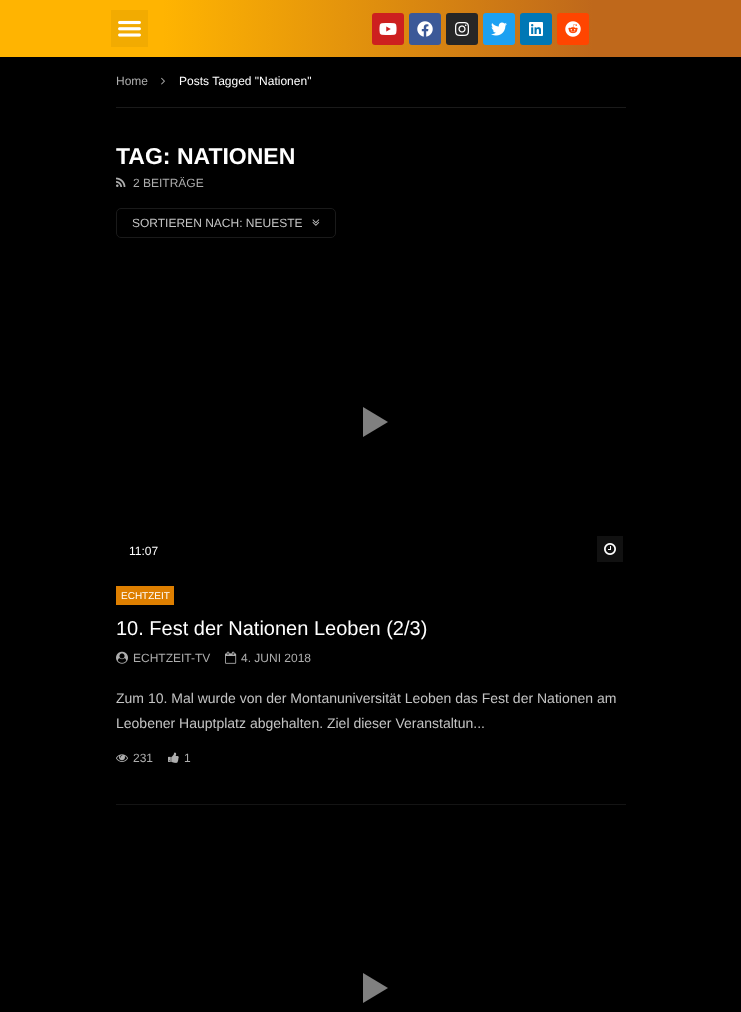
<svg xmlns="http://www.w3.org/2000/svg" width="741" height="1012">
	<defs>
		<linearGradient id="g1" gradientUnits="userSpaceOnUse" x1="741" y1="28" x2="0" y2="29"><stop offset="0.2" stop-color="#BF681B" /><stop offset="0.78" stop-color="#FFB401" /></linearGradient>
	</defs>
	<rect width="100%" height="100%" fill="#000000" />
	<rect x="0" y="0" width="741" height="57" fill="url(#g1)" />
	<rect x="111" y="10" width="37" height="37" fill="#F2AB01" />
	<image x="118" y="20" width="23" height="17" href="assets/img1.png" />
	<rect x="372" y="13" width="32" height="32" rx="3" fill="#CD201F" />
	<image x="379" y="23" width="18" height="12" href="assets/img2.png" />
	<rect x="409" y="13" width="32" height="32" rx="3" fill="#3B5998" />
	<image x="417" y="21" width="16" height="16" href="assets/img3.png" />
	<rect x="446" y="13" width="32" height="32" rx="3" fill="#262626" />
	<image x="455" y="22" width="14" height="14" href="assets/img4.png" />
	<rect x="483" y="13" width="32" height="32" rx="3" fill="#1DA1F2" />
	<image x="491" y="22" width="16" height="14" href="assets/img5.png" />
	<rect x="520" y="13" width="32" height="32" rx="3" fill="#0077B5" />
	<image x="529" y="22" width="14" height="14" href="assets/img6.png" />
	<rect x="557" y="13" width="32" height="32" rx="3" fill="#FF4500" />
	<image x="565" y="21" width="16" height="16" href="assets/img7.png" />
	<rect x="116" y="107" width="510" height="1" fill="#1A1A1A" />
	<text x="116" y="85" font-family="Liberation Sans" font-size="12" fill="#ADADAD">Home</text>
	<image x="161" y="77" width="4" height="8" href="assets/img8.png" />
	<text x="179" y="85" font-family="Liberation Sans" font-size="12" fill="#FFFFFF">Posts Tagged "Nationen"</text>
	<text x="116" y="164" font-family="Liberation Sans" font-size="23" font-weight="700" fill="#FFFFFF">TAG: NATIONEN</text>
	<image x="116" y="177" width="10" height="10" href="assets/img9.png" />
	<text x="133" y="187" font-family="Liberation Sans" font-size="12" fill="#ADADAD">2 BEITRÄGE</text>
	<rect x="116.5" y="208.5" width="219" height="29" rx="4.5" fill="none" stroke="#1A1A1A" />
	<text x="132" y="227" font-family="Liberation Sans" font-size="12" fill="#C4C4C4">SORTIEREN NACH: NEUESTE</text>
	<image x="312" y="219" width="8" height="7" href="assets/img10.png" />
	<rect x="116" y="804" width="510" height="1" fill="#141414" />
	<path d="M363 437V407L388 422Z" fill="#808080" />
	<text x="129" y="555" font-family="Liberation Sans" font-size="12" fill="#FFFFFF">11:07</text>
	<rect x="597" y="536" width="26" height="26" fill="#111111" />
	<image x="604" y="543" width="12" height="12" href="assets/img11.png" />
	<rect x="116" y="586" width="58" height="19" fill="#DE7F00" />
	<text x="121" y="599" font-family="Liberation Sans" font-size="10" fill="#FFFFFF">ECHTZEIT</text>
	<text x="116" y="635" font-family="Liberation Sans" font-size="20" fill="#FFFFFF">10. Fest der Nationen Leoben (2/3)</text>
	<image x="116" y="651" width="12" height="13" href="assets/img12.png" />
	<text x="133" y="662" font-family="Liberation Sans" font-size="12" fill="#ADADAD">ECHTZEIT-TV</text>
	<image x="225" y="651" width="12" height="13" href="assets/img13.png" />
	<text x="241" y="662" font-family="Liberation Sans" font-size="12" fill="#ADADAD">4. JUNI 2018</text>
	<g font-family="Liberation Sans" font-size="14" fill="#C4C4C4">
		<text x="116" y="703">Zum 10. Mal wurde von der Montanuniversität Leoben das Fest der Nationen am</text>
		<text x="116" y="728">Leobener Hauptplatz abgehalten. Ziel dieser Veranstaltun...</text>
	</g>
	<image x="116" y="754" width="12" height="8" href="assets/img14.png" />
	<text x="133" y="762" font-family="Liberation Sans" font-size="12" fill="#ADADAD">231</text>
	<image x="168" y="752" width="11" height="11" href="assets/img15.png" />
	<text x="184" y="762" font-family="Liberation Sans" font-size="12" fill="#ADADAD">1</text>
	<path d="M363 1003V973L388 988Z" fill="#808080" />
</svg>
